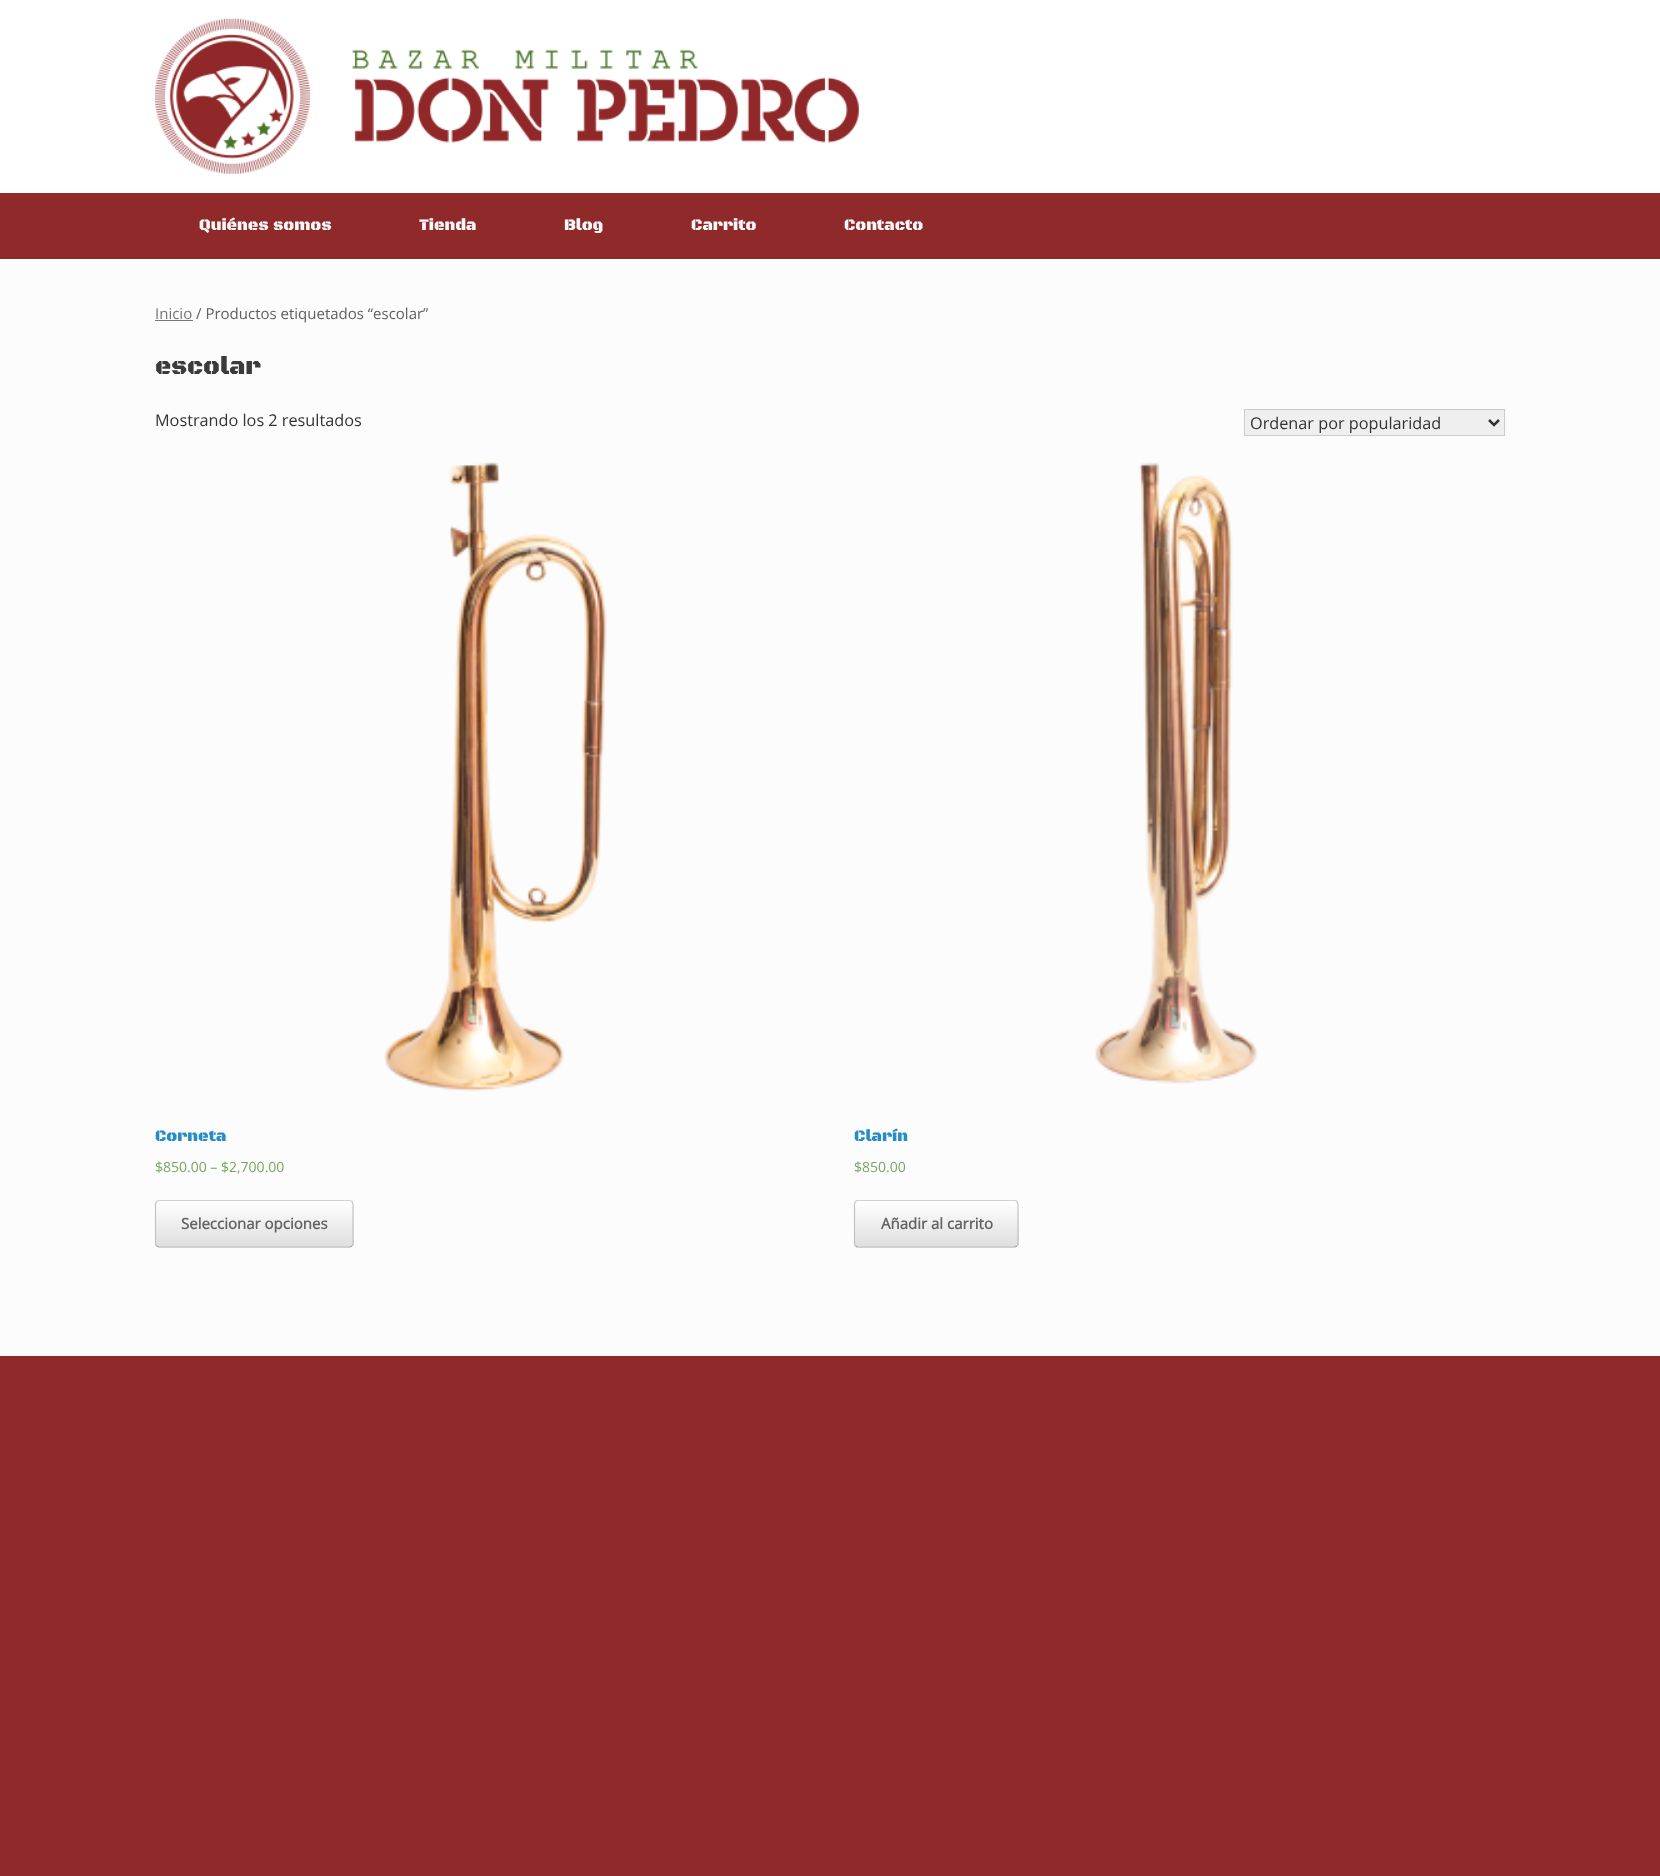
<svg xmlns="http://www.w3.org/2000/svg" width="1660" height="1876">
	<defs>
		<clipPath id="clip1"><rect x="155" y="1200" width="199" height="48" rx="4" /></clipPath>
		<linearGradient id="g1" gradientUnits="userSpaceOnUse" x1="156" y1="1201" x2="156" y2="1156"><stop offset="0" stop-color="#DFDFDF" /><stop offset="1" stop-color="#FFFFFF" /></linearGradient>
		<linearGradient id="g2" gradientUnits="userSpaceOnUse" x1="156" y1="1246" x2="156" y2="1201"><stop offset="0" stop-color="#DFDFDF" /><stop offset="1" stop-color="#FFFFFF" /></linearGradient>
		<linearGradient id="g3" gradientUnits="userSpaceOnUse" x1="156" y1="1291" x2="156" y2="1246"><stop offset="0" stop-color="#DFDFDF" /><stop offset="1" stop-color="#FFFFFF" /></linearGradient>
		<clipPath id="clip2"><rect x="854" y="1200" width="165" height="48" rx="4" /></clipPath>
		<linearGradient id="g4" gradientUnits="userSpaceOnUse" x1="855" y1="1201" x2="855" y2="1156"><stop offset="0" stop-color="#DFDFDF" /><stop offset="1" stop-color="#FFFFFF" /></linearGradient>
		<linearGradient id="g5" gradientUnits="userSpaceOnUse" x1="855" y1="1246" x2="855" y2="1201"><stop offset="0" stop-color="#DFDFDF" /><stop offset="1" stop-color="#FFFFFF" /></linearGradient>
		<linearGradient id="g6" gradientUnits="userSpaceOnUse" x1="855" y1="1291" x2="855" y2="1246"><stop offset="0" stop-color="#DFDFDF" /><stop offset="1" stop-color="#FFFFFF" /></linearGradient>
	</defs>
	<rect width="100%" height="100%" fill="#90292A" />
	<rect x="0" y="0" width="1660" height="193" fill="#FFFFFF" />
	<image x="155" y="18" width="704" height="156" href="assets/img1.png" />
	<g font-family="Black Ops One" font-size="16.25" font-weight="900" fill="#F9F9F9">
		<text x="199" y="230">Quiénes somos</text>
		<text x="419" y="230">Tienda</text>
		<text x="564" y="230">Blog</text>
		<text x="691" y="230">Carrito</text>
		<text x="844" y="230">Contacto</text>
	</g>
	<rect x="0" y="259" width="1660" height="1097" fill="#FCFCFC" />
	<text x="155" y="319" font-family="Open Sans" font-size="15" fill="#767676">Inicio</text>
	<rect x="155" y="320" width="38" height="1" fill="#767676" />
	<text x="196" y="319" font-family="Open Sans" font-size="15" fill="#5E5E5E">/ Productos etiquetados “escolar”</text>
	<text x="155" y="374" font-family="Black Ops One" font-size="25" font-weight="900" fill="#3B3B3B">escolar</text>
	<text x="155" y="426" font-family="Open Sans" font-size="16.25" fill="#333333">Mostrando los 2 resultados</text>
	<rect x="1244.5" y="409.5" width="260" height="26" fill="#EFEFEF" stroke="#CCCCCC" />
	<path d="M1489 420L1494 425L1499 420" fill="none" stroke="#333333" stroke-width="2.5" />
	<text x="1250" y="429" font-family="Open Sans" font-size="16.25" fill="#333333">Ordenar por popularidad</text>
	<image x="384" y="462" width="223" height="630" href="assets/img2.png" />
	<text x="155" y="1141" font-family="Black Ops One" font-size="16.25" font-weight="900" fill="#248CC8">Corneta</text>
	<text x="155" y="1172" font-family="Open Sans" font-size="14" fill="#77A464">$850.00 – $2,700.00</text>
	<g clip-path="url(#clip1)">
		<rect x="155" y="1200" width="199" height="1" fill="url(#g1)" />
		<rect x="155" y="1201" width="199" height="45" fill="url(#g2)" />
		<rect x="155" y="1246" width="199" height="2" fill="url(#g3)" />
	</g>
	<path d="M156.5 1201.5L159 1200.5H350L352 1201.5" fill="none" stroke="#D2D2D2" stroke-width="1.2" />
	<path d="M352 1201.5L353 1204V1244L352 1246" fill="none" stroke="#C3C3C3" stroke-width="1.2" />
	<path d="M352 1246L350 1247H159L156.5 1246" fill="none" stroke="#9F9F9F" stroke-width="1.2" />
	<path d="M156.5 1246L155.5 1244V1204L156.5 1201.5" fill="none" stroke="#C3C3C3" stroke-width="1.2" />
	<text x="181" y="1229" font-family="Open Sans" font-size="15" font-weight="700" fill="#646464">Seleccionar opciones</text>
	<image x="1095" y="462" width="163" height="622" href="assets/img3.png" />
	<text x="854" y="1141" font-family="Black Ops One" font-size="16.25" font-weight="900" fill="#248CC8">Clarín</text>
	<text x="854" y="1172" font-family="Open Sans" font-size="14" fill="#77A464">$850.00</text>
	<g clip-path="url(#clip2)">
		<rect x="854" y="1200" width="165" height="1" fill="url(#g4)" />
		<rect x="854" y="1201" width="165" height="45" fill="url(#g5)" />
		<rect x="854" y="1246" width="165" height="2" fill="url(#g6)" />
	</g>
	<path d="M855.5 1201.5L857 1200.5H989H1015L1017 1201.5" fill="none" stroke="#D2D2D2" stroke-width="1.2" />
	<path d="M1017 1201.5L1018 1204V1244L1017 1246" fill="none" stroke="#C3C3C3" stroke-width="1.2" />
	<path d="M1017 1246L1015 1247H857L855.5 1246" fill="none" stroke="#9F9F9F" stroke-width="1.2" />
	<path d="M855.5 1246L854.5 1244V1204L855.5 1201.5" fill="none" stroke="#C3C3C3" stroke-width="1.2" />
	<text x="881" y="1229" font-family="Open Sans" font-size="15" font-weight="700" fill="#646464">Añadir al carrito</text>
</svg>
